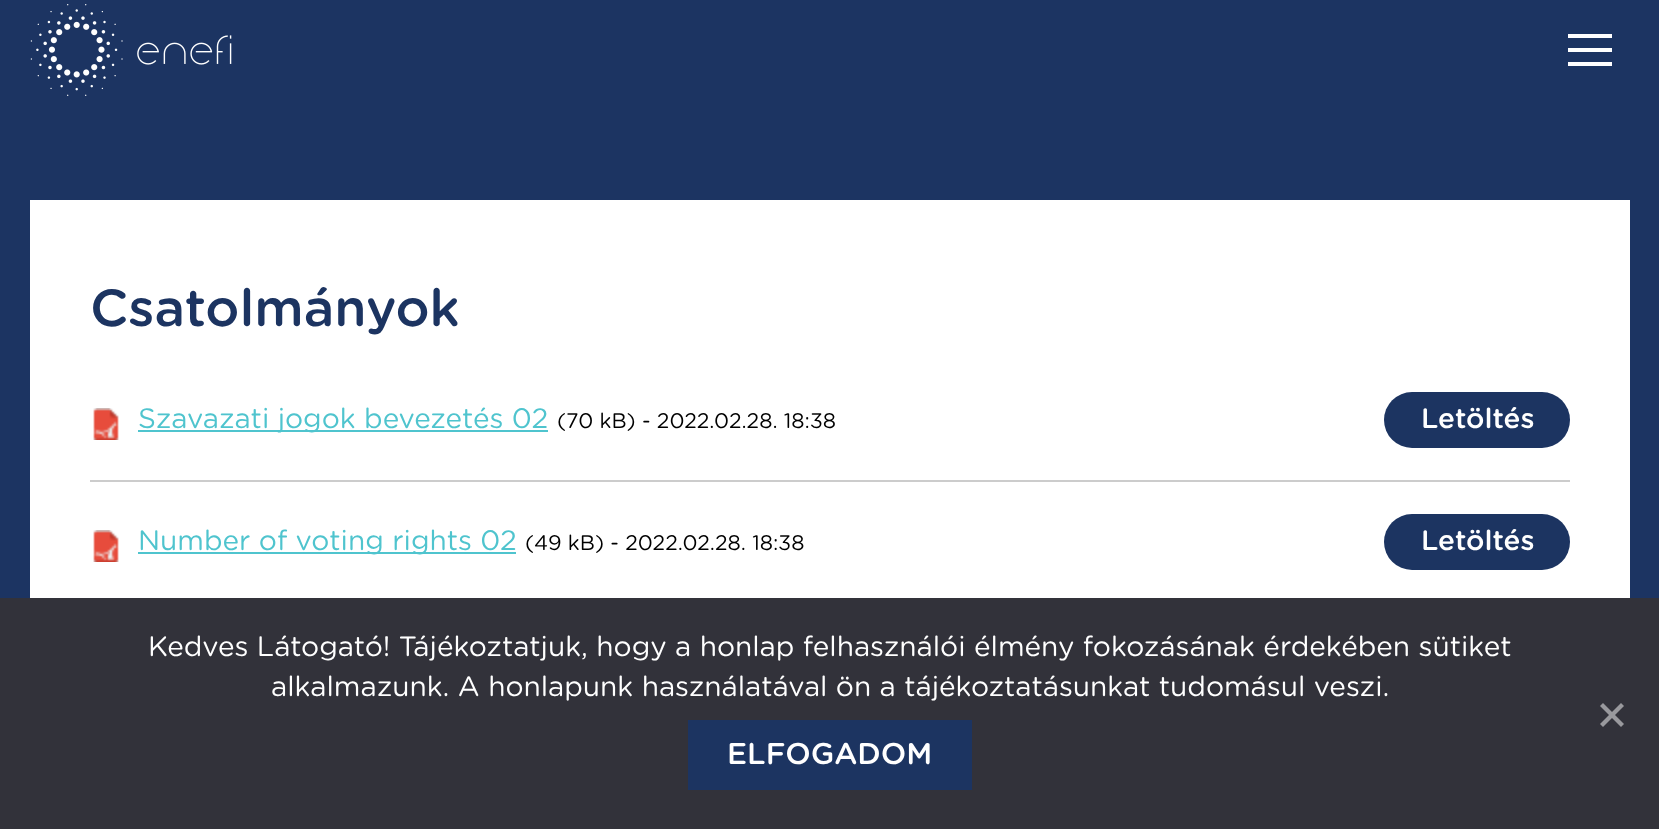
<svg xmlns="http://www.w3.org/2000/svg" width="1659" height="829">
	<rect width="100%" height="100%" fill="#1C3462" />
	<image x="30" y="4" width="202" height="92" href="assets/img1.png" />
	<rect x="1568" y="34" width="44" height="4" fill="#FFFFFF" />
	<rect x="1568" y="48" width="44" height="4" fill="#FFFFFF" />
	<rect x="1568" y="62" width="44" height="4" fill="#FFFFFF" />
	<rect x="30" y="200" width="1600" height="398" fill="#FFFFFF" />
	<text x="90" y="326" font-family="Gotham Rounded" font-size="52" font-weight="500" fill="#1C3461">Csatolmányok</text>
	<image x="93" y="408" width="26" height="32" href="assets/img2.png" />
	<rect x="90" y="480" width="1480" height="2" fill="#CCCCCC" />
	<rect x="138" y="430" width="410" height="2" fill="#4FC4CE" />
	<text x="138" y="428" font-family="Gotham Rounded" font-size="28" fill="#4FC4CE">Szavazati jogok bevezetés 02</text>
	<text x="557" y="428" font-family="Gotham Rounded" font-size="21" fill="#000000">(70 kB) - 2022.02.28. 18:38</text>
	<rect x="1384" y="392" width="186" height="56" rx="28" fill="#1C3461" />
	<text x="1421" y="428" font-family="Gotham Rounded" font-size="28" font-weight="500" fill="#FFFFFF">Letöltés</text>
	<image x="93" y="530" width="26" height="32" href="assets/img2.png" />
	<rect x="138" y="552" width="378" height="2" fill="#4FC4CE" />
	<text x="138" y="550" font-family="Gotham Rounded" font-size="28" fill="#4FC4CE">Number of voting rights 02</text>
	<text x="525" y="550" font-family="Gotham Rounded" font-size="21" fill="#000000">(49 kB) - 2022.02.28. 18:38</text>
	<rect x="1384" y="514" width="186" height="56" rx="28" fill="#1C3461" />
	<text x="1421" y="550" font-family="Gotham Rounded" font-size="28" font-weight="500" fill="#FFFFFF">Letöltés</text>
	<rect x="0" y="598" width="1659" height="231" fill="#32323A" />
	<g font-family="Gotham Rounded" font-size="28" fill="#FFFFFF">
		<text x="148" y="656">Kedves Látogató! Tájékoztatjuk, hogy a honlap felhasználói élmény fokozásának érdekében sütiket</text>
		<text x="271" y="696">alkalmazunk. A honlapunk használatával ön a tájékoztatásunkat tudomásul veszi.</text>
	</g>
	<path d="M1621 703L1624 706L1603 727L1600 724Z" fill="#99999D" />
	<path d="M1600 706L1603 703L1624 724L1621 727Z" fill="#99999D" />
	<rect x="688" y="720" width="284" height="70" fill="#1C3461" />
	<text x="727" y="764" font-family="Gotham Rounded" font-size="30" font-weight="500" fill="#FFFFFF">ELFOGADOM</text>
</svg>
